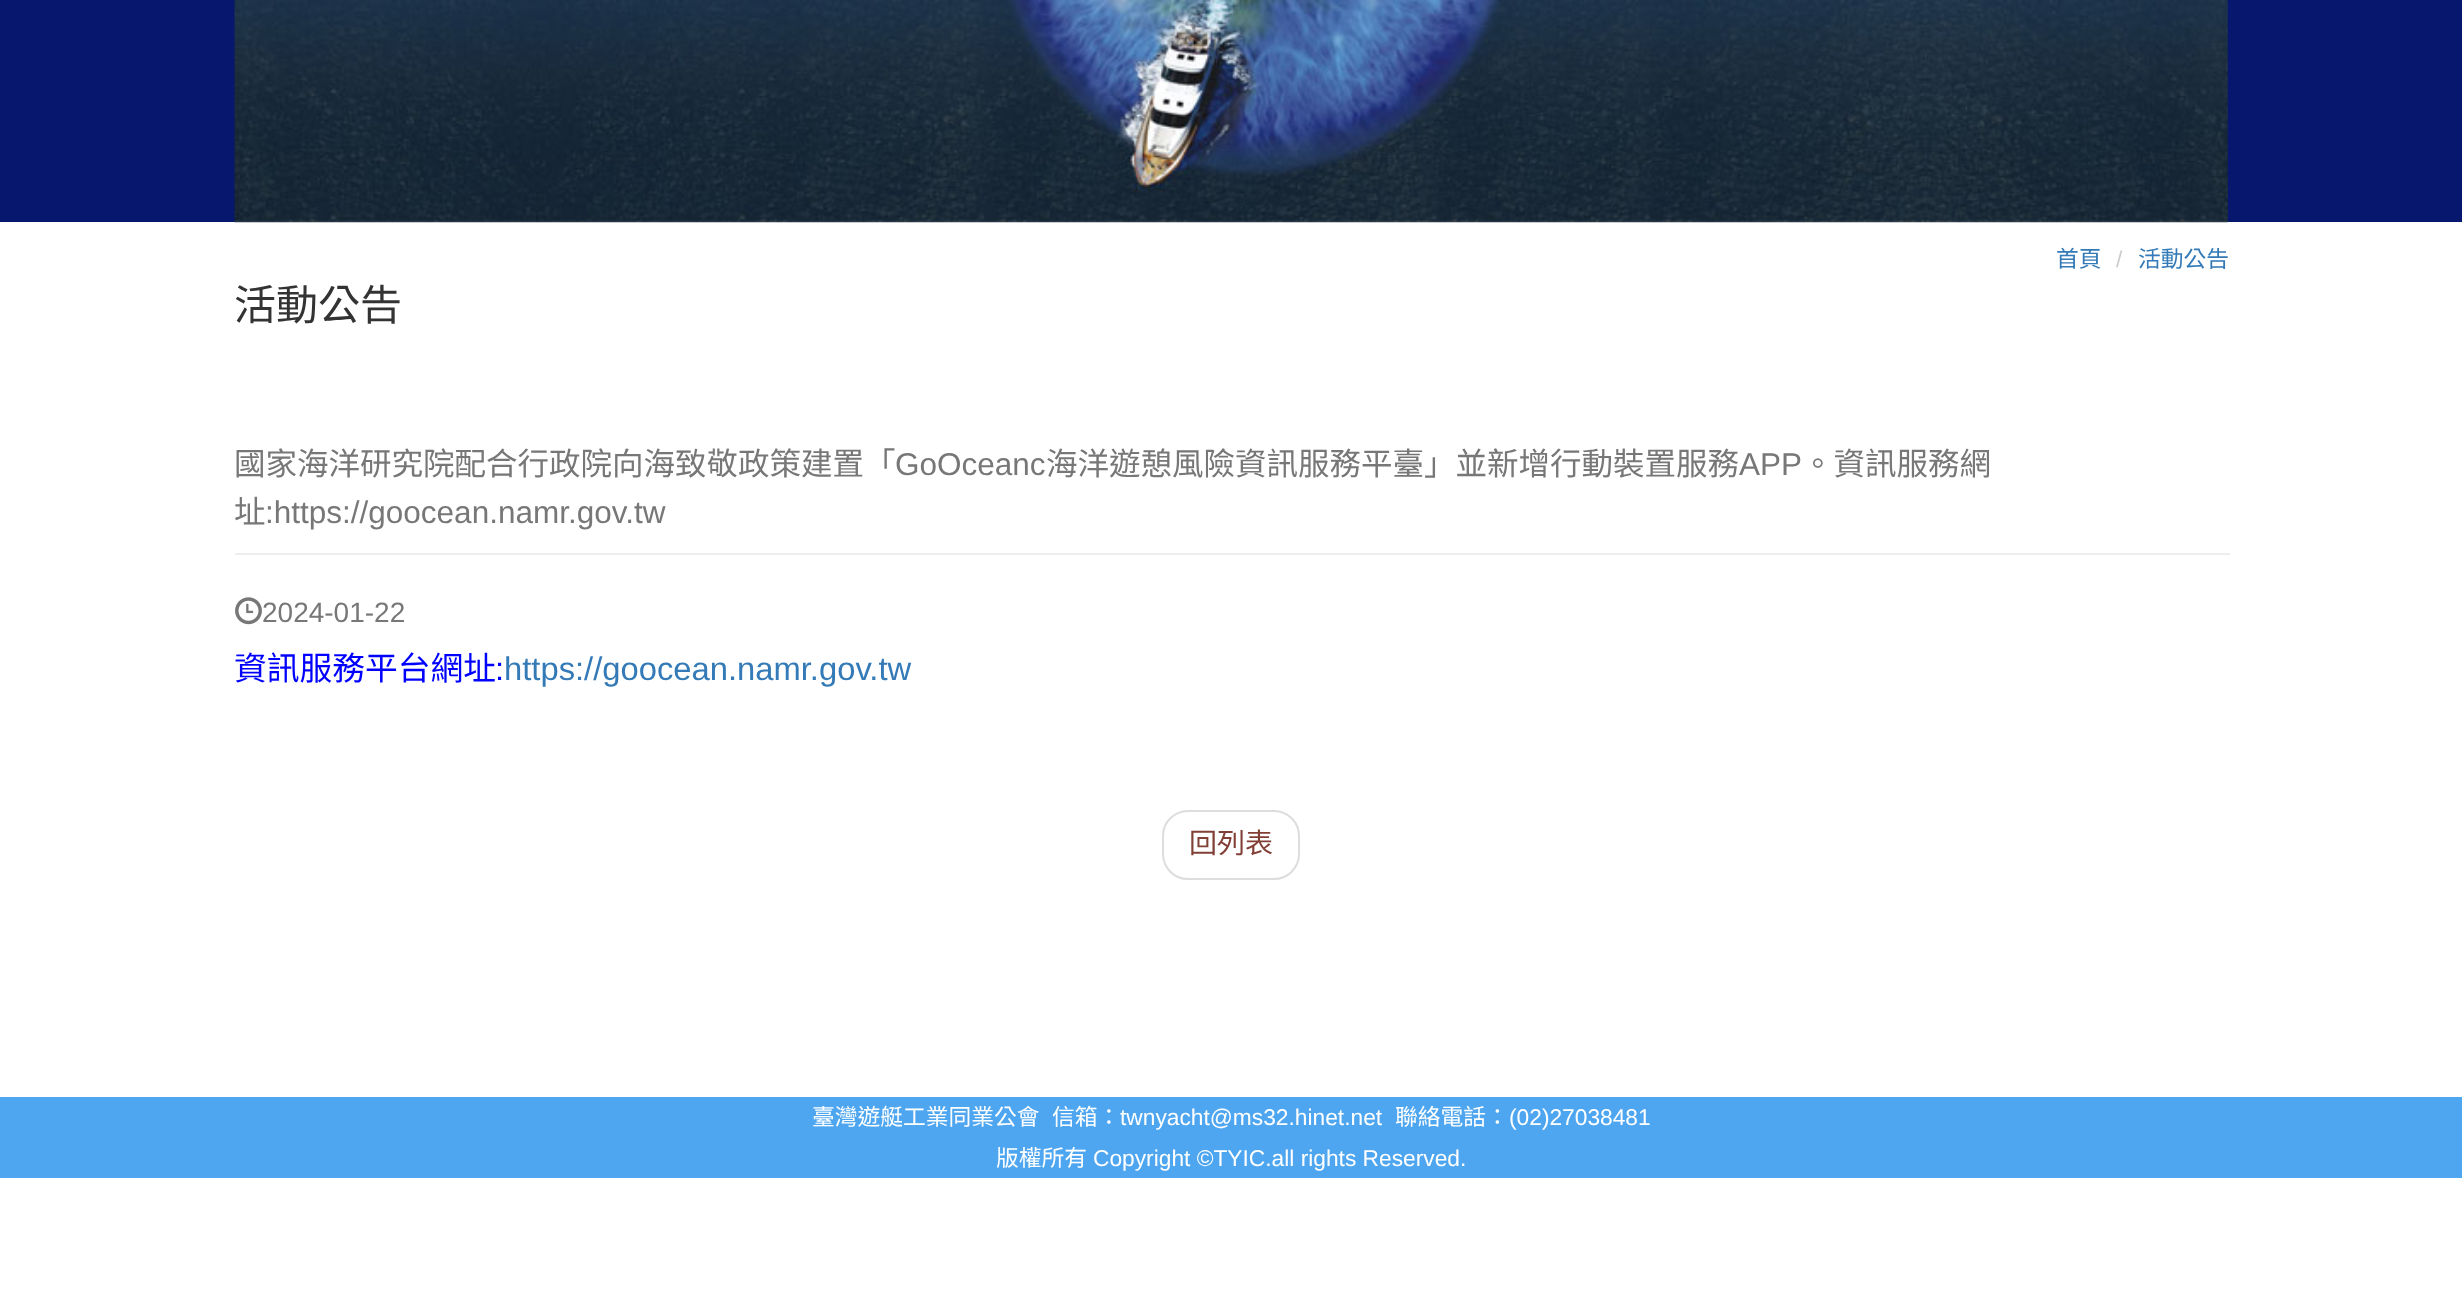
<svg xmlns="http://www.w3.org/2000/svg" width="2462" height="1290">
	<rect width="100%" height="100%" fill="#FFFFFF" />
	<rect x="0" y="0" width="2462" height="222" fill="#07176D" />
	<image x="234" y="0" width="1994" height="223" href="assets/img1.png" />
	<text x="2056" y="267" font-family="Noto Sans CJK TC" font-size="22.75" fill="#337AB7">首頁</text>
	<text x="2116" y="267" font-family="Liberation Sans" font-size="22.75" fill="#CCCCCC">/</text>
	<text x="2138" y="267" font-family="Noto Sans CJK TC" font-size="22.75" fill="#337AB7">活動公告</text>
	<text x="234" y="320" font-family="Noto Sans CJK TC" font-size="42" fill="#333333">活動公告</text>
	<rect x="235" y="553" width="1995" height="2" fill="#EEEEEE" />
	<text x="234" y="475" font-family="Noto Sans CJK TC" font-size="31.5" fill="#777777">國家海洋研究院配合行政院向海致敬政策建置「</text>
	<text x="895" y="475" font-family="Liberation Sans" font-size="31.5" fill="#777777">GoOceanc</text>
	<text x="1046" y="475" font-family="Noto Sans CJK TC" font-size="31.5" fill="#777777">海洋遊憩風險資訊服務平臺」並新增行動裝置服務</text>
	<text x="1739" y="475" font-family="Liberation Sans" font-size="31.5" fill="#777777">APP</text>
	<g font-family="Noto Sans CJK TC" font-size="31.5" fill="#777777">
		<text x="1802" y="475">。資訊服務網</text>
		<text x="234" y="523">址</text>
	</g>
	<text x="265" y="523" font-family="Liberation Sans" font-size="31.5" fill="#777777">:https://goocean.namr.gov.tw</text>
	<image x="235" y="597" width="27" height="28" href="assets/img2.png" />
	<text x="262" y="622" font-family="Liberation Sans" font-size="28" fill="#777777">2024-01-22</text>
	<text x="234" y="680" font-family="Noto Sans CJK TC" font-size="32.75" fill="#0000FF">資訊服務平台網址</text>
	<text x="495" y="680" font-family="Liberation Sans" font-size="32.75" fill="#0000FF">:</text>
	<text x="504" y="680" font-family="Liberation Sans" font-size="32.75" fill="#337AB7">https://goocean.namr.gov.tw</text>
	<rect x="1163" y="811" width="136" height="68" rx="25" fill="none" stroke="#DDDDDD" stroke-width="2" />
	<text x="1189" y="853" font-family="Noto Sans CJK TC" font-size="28" fill="#823F35">回列表</text>
	<rect x="0" y="1097" width="2462" height="81" fill="#4EA6F0" />
	<g font-family="Noto Sans CJK TC" font-size="22.75" fill="#FFFFFF">
		<text x="812" y="1125">臺灣遊艇工業同業公會</text>
		<text x="1052" y="1125">信箱：</text>
	</g>
	<text x="1120" y="1125" font-family="Liberation Sans" font-size="22.75" fill="#FFFFFF">twnyacht@ms32.hinet.net</text>
	<text x="1395" y="1125" font-family="Noto Sans CJK TC" font-size="22.75" fill="#FFFFFF">聯絡電話：</text>
	<text x="1509" y="1125" font-family="Liberation Sans" font-size="22.75" fill="#FFFFFF">(02)27038481</text>
	<text x="996" y="1166" font-family="Noto Sans CJK TC" font-size="22.75" fill="#FFFFFF">版權所有</text>
	<text x="1093" y="1166" font-family="Liberation Sans" font-size="22.75" fill="#FFFFFF">Copyright ©TYIC.all rights Reserved.</text>
</svg>
